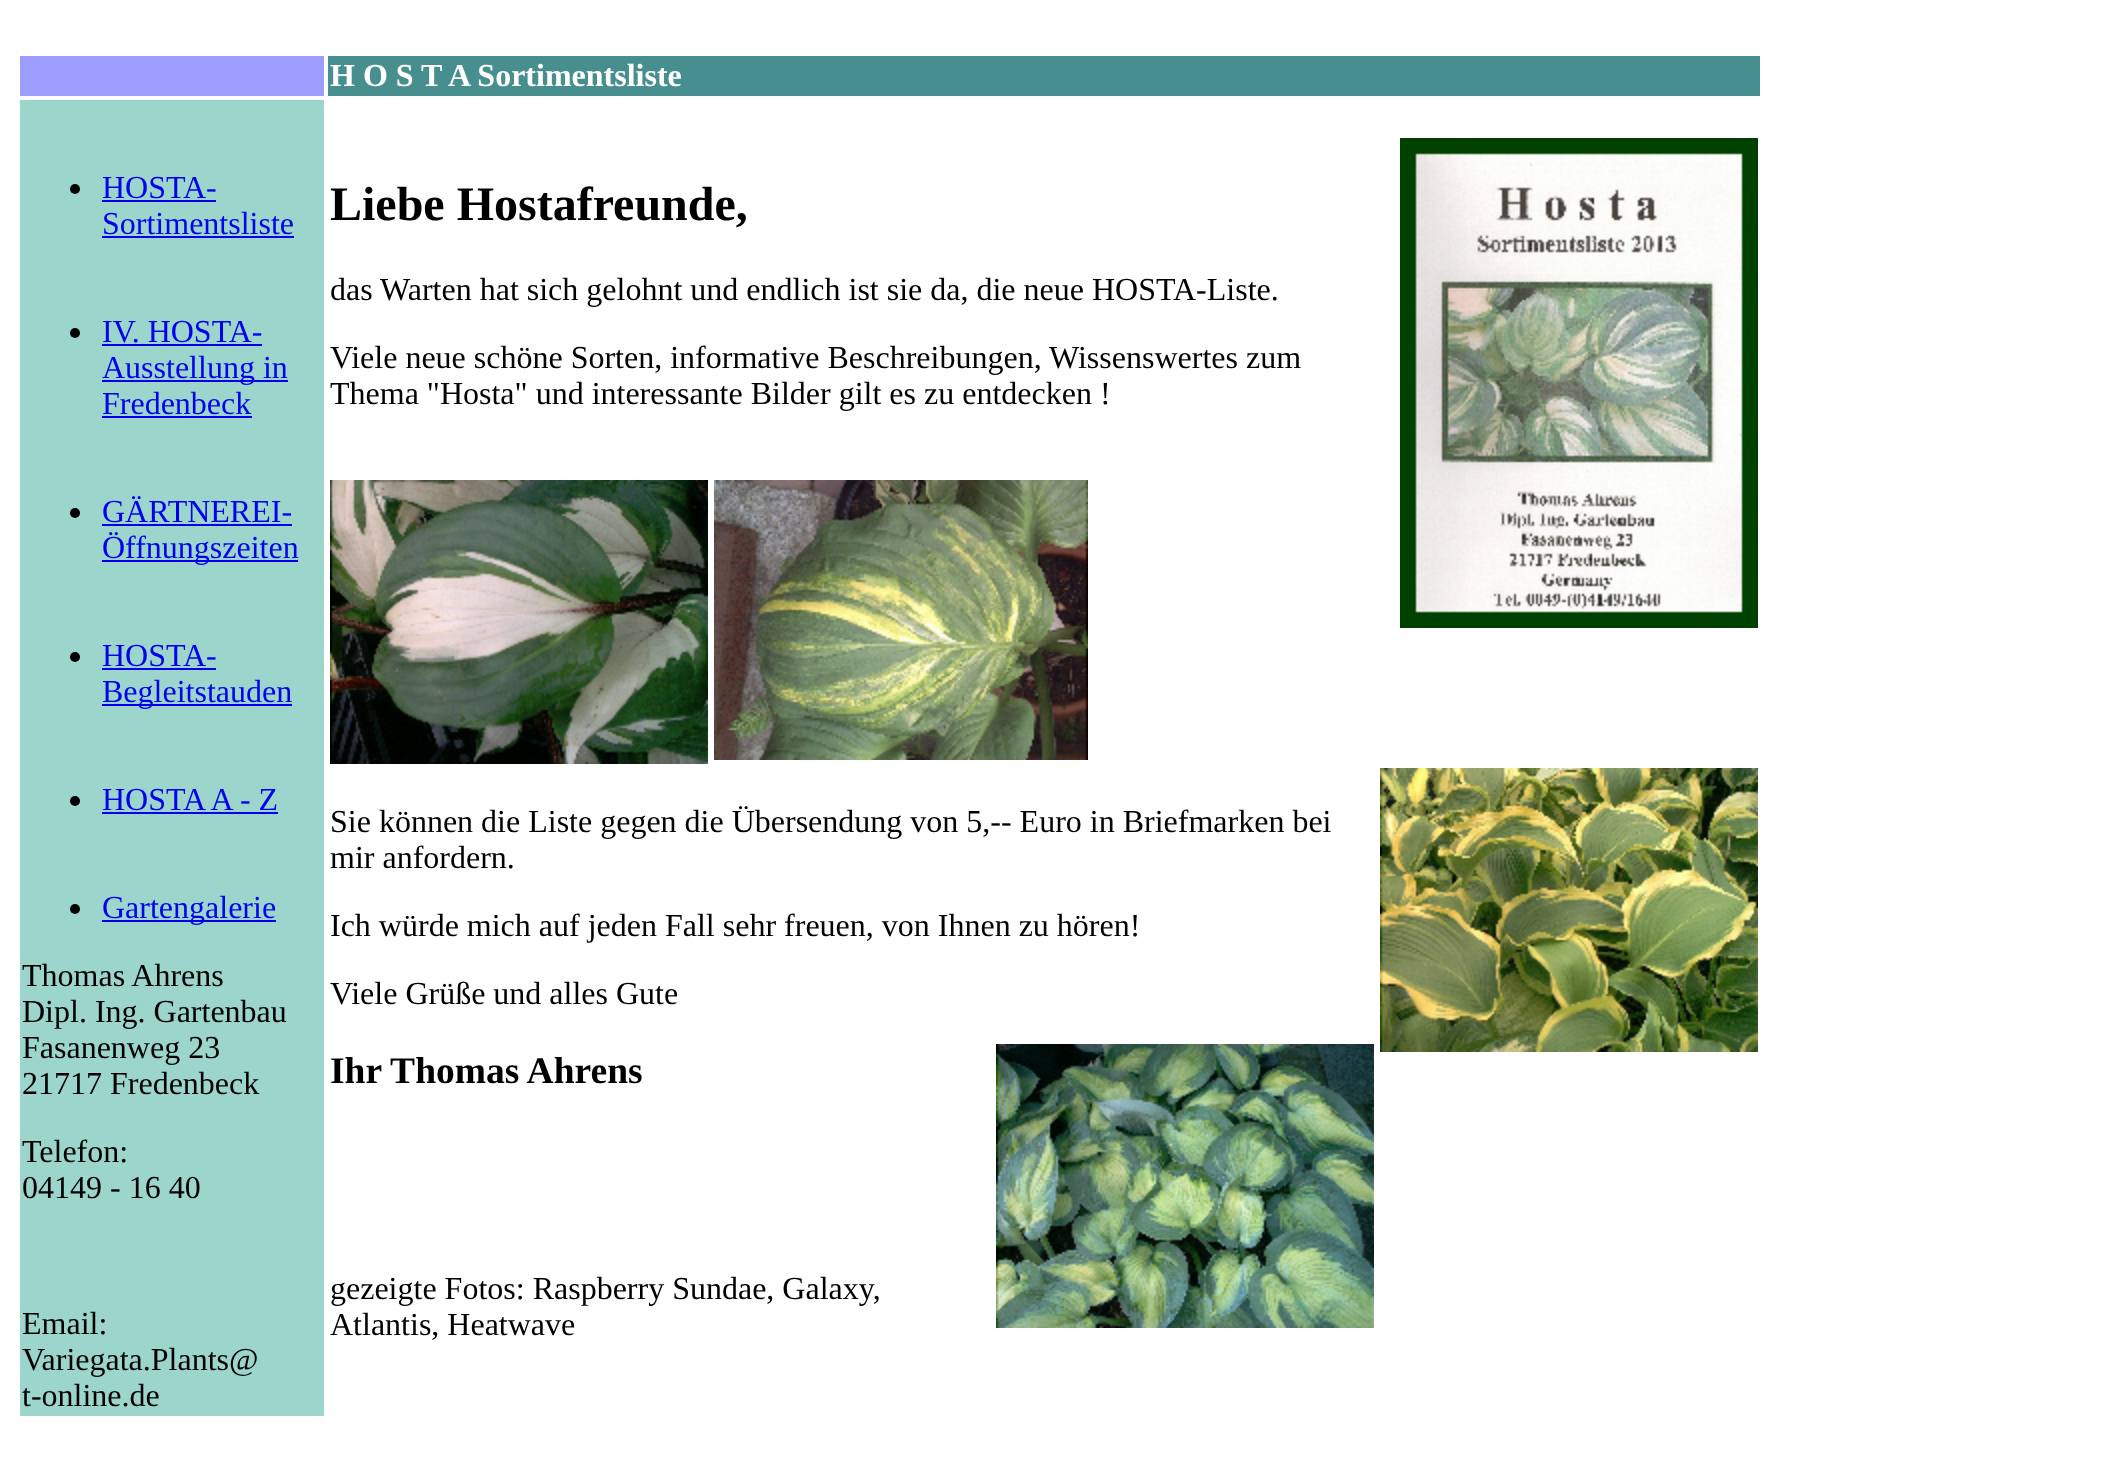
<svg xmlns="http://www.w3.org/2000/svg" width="2123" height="1479">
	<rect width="100%" height="100%" fill="#FFFFFF" />
	<rect x="20" y="56" width="304" height="40" fill="#9D9DFF" />
	<rect x="328" y="56" width="1432" height="40" fill="#478F8F" />
	<text x="330" y="86" font-family="Liberation Serif" font-size="32" font-weight="700" fill="#FFFFFF">H O S T A Sortimentsliste</text>
	<rect x="20" y="100" width="304" height="1316" fill="#9BD5CC" />
	<circle cx="75" cy="189" r="5" fill="#000000" />
	<text x="102" y="198" font-family="Liberation Serif" font-size="32" fill="#0000EE">HOSTA-</text>
	<rect x="102" y="200" width="114" height="2" fill="#0000EE" />
	<text x="102" y="234" font-family="Liberation Serif" font-size="32" fill="#0000EE">Sortimentsliste</text>
	<rect x="102" y="236" width="192" height="2" fill="#0000EE" />
	<circle cx="75" cy="333" r="5" fill="#000000" />
	<text x="102" y="342" font-family="Liberation Serif" font-size="32" fill="#0000EE">IV. HOSTA-</text>
	<rect x="102" y="344" width="160" height="2" fill="#0000EE" />
	<rect x="102" y="380" width="186" height="2" fill="#0000EE" />
	<g font-family="Liberation Serif" font-size="32" fill="#0000EE">
		<text x="102" y="378">Ausstellung in</text>
		<text x="102" y="414">Fredenbeck</text>
	</g>
	<rect x="102" y="416" width="150" height="2" fill="#0000EE" />
	<circle cx="75" cy="513" r="5" fill="#000000" />
	<text x="102" y="522" font-family="Liberation Serif" font-size="32" fill="#0000EE">GÄRTNEREI-</text>
	<rect x="102" y="524" width="190" height="2" fill="#0000EE" />
	<rect x="102" y="560" width="196" height="2" fill="#0000EE" />
	<text x="102" y="558" font-family="Liberation Serif" font-size="32" fill="#0000EE">Öffnungszeiten</text>
	<circle cx="75" cy="657" r="5" fill="#000000" />
	<text x="102" y="666" font-family="Liberation Serif" font-size="32" fill="#0000EE">HOSTA-</text>
	<rect x="102" y="668" width="114" height="2" fill="#0000EE" />
	<rect x="102" y="704" width="190" height="2" fill="#0000EE" />
	<text x="102" y="702" font-family="Liberation Serif" font-size="32" fill="#0000EE">Begleitstauden</text>
	<circle cx="75" cy="801" r="5" fill="#000000" />
	<text x="102" y="810" font-family="Liberation Serif" font-size="32" fill="#0000EE">HOSTA A - Z</text>
	<rect x="102" y="812" width="176" height="2" fill="#0000EE" />
	<circle cx="75" cy="909" r="5" fill="#000000" />
	<rect x="102" y="920" width="174" height="2" fill="#0000EE" />
	<text x="102" y="918" font-family="Liberation Serif" font-size="32" fill="#0000EE">Gartengalerie</text>
	<g font-family="Liberation Serif" font-size="32" fill="#000000">
		<text x="22" y="986">Thomas Ahrens</text>
		<text x="22" y="1022">Dipl. Ing. Gartenbau</text>
		<text x="22" y="1058">Fasanenweg 23</text>
		<text x="22" y="1094">21717 Fredenbeck</text>
		<text x="22" y="1162">Telefon:</text>
		<text x="22" y="1198">04149 - 16 40</text>
		<text x="22" y="1334">Email:</text>
		<text x="22" y="1370">Variegata.Plants@</text>
		<text x="22" y="1406">t-online.de</text>
	</g>
	<text x="330" y="220" font-family="Liberation Serif" font-size="48" font-weight="700" fill="#000000">Liebe Hostafreunde,</text>
	<image x="1400" y="138" width="358" height="490" href="assets/img1.png" />
	<g font-family="Liberation Serif" font-size="32" fill="#000000">
		<text x="330" y="300">das Warten hat sich gelohnt und endlich ist sie da, die neue HOSTA-Liste.</text>
		<text x="330" y="368">Viele neue schöne Sorten, informative Beschreibungen, Wissenswertes zum</text>
		<text x="330" y="404">Thema "Hosta" und interessante Bilder gilt es zu entdecken !</text>
	</g>
	<image x="330" y="480" width="378" height="284" href="assets/img2.png" />
	<image x="714" y="480" width="374" height="280" href="assets/img3.png" />
	<text x="330" y="832" font-family="Liberation Serif" font-size="32" fill="#000000">Sie können die Liste gegen die Übersendung von 5,-- Euro in Briefmarken bei</text>
	<image x="1380" y="768" width="378" height="284" href="assets/img4.png" />
	<g font-family="Liberation Serif" font-size="32" fill="#000000">
		<text x="330" y="868">mir anfordern.</text>
		<text x="330" y="936">Ich würde mich auf jeden Fall sehr freuen, von Ihnen zu hören!</text>
		<text x="330" y="1004">Viele Grüße und alles Gute</text>
	</g>
	<text x="330" y="1083" font-family="Liberation Serif" font-size="37.5" font-weight="700" fill="#000000">Ihr Thomas Ahrens</text>
	<image x="996" y="1044" width="378" height="284" href="assets/img5.png" />
	<g font-family="Liberation Serif" font-size="32" fill="#000000">
		<text x="330" y="1299">gezeigte Fotos: Raspberry Sundae, Galaxy,</text>
		<text x="330" y="1335">Atlantis, Heatwave</text>
	</g>
</svg>
